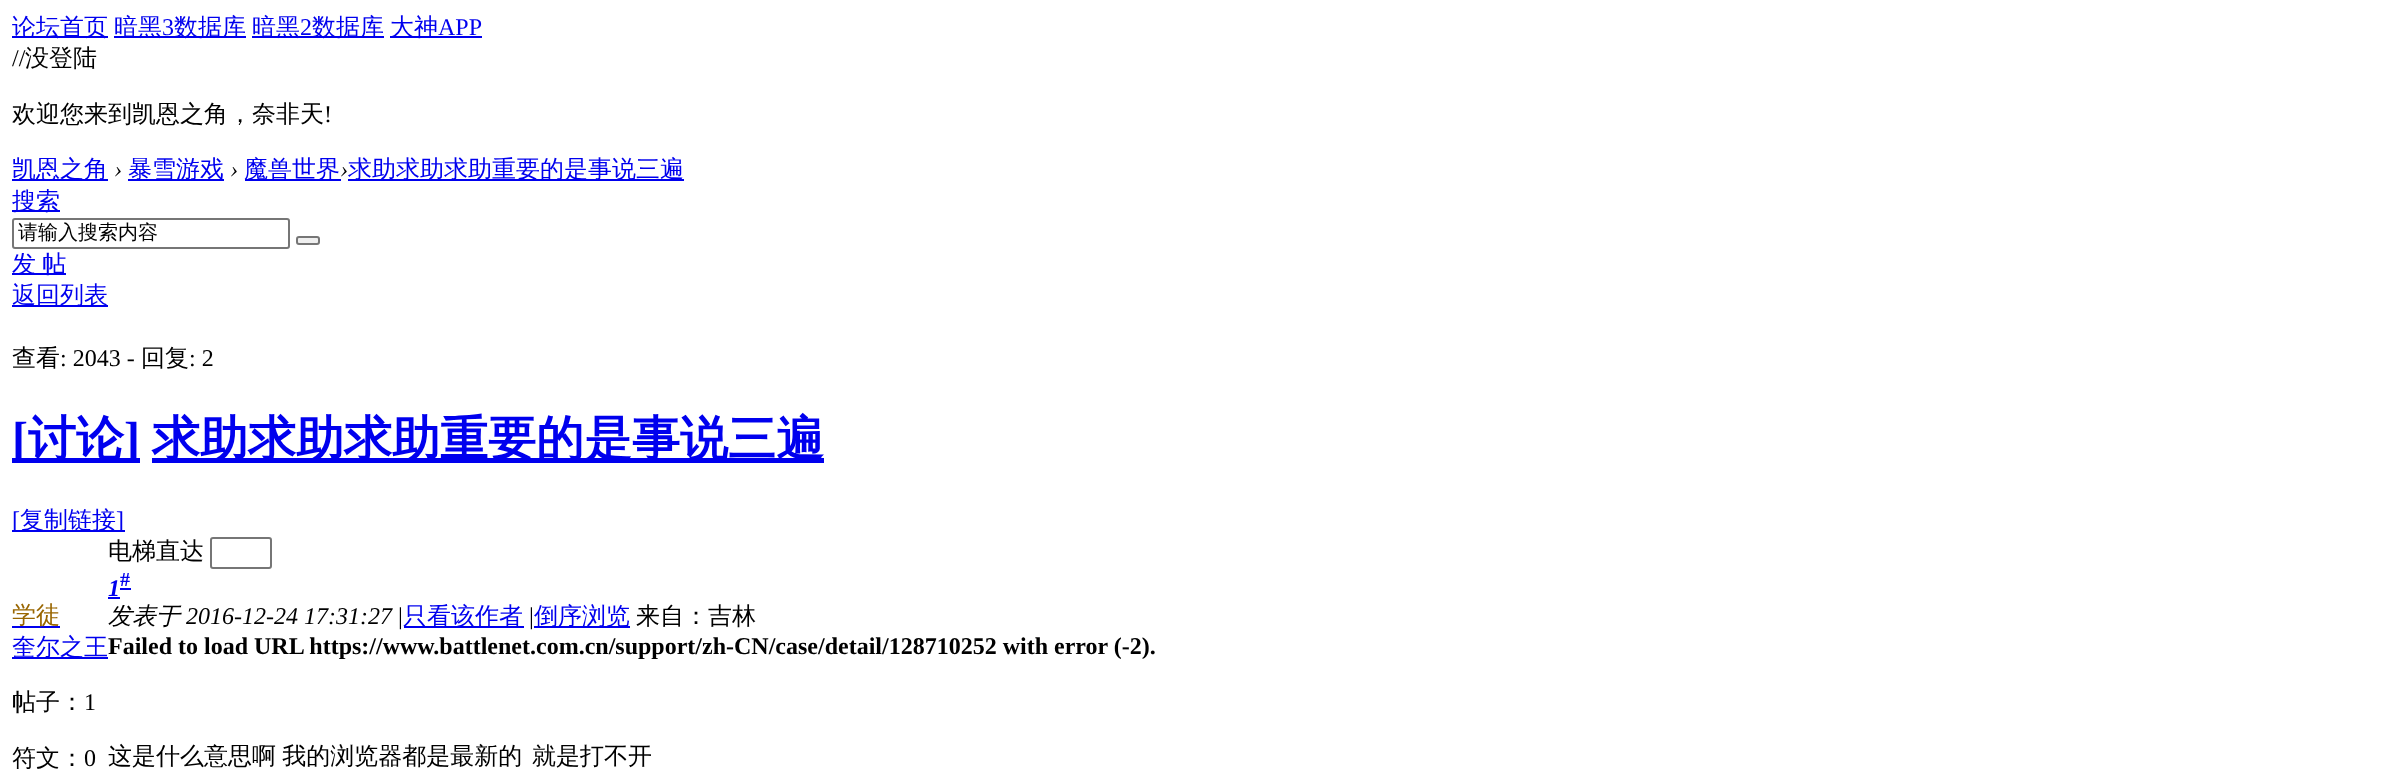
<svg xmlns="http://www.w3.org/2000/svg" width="2391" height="769">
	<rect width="100%" height="100%" fill="#FFFFFF" />
	<rect x="12" y="36" width="96" height="2" fill="#0000EE" />
	<text x="12" y="35" font-family="WenQuanYi Zen Hei" font-size="24" font-weight="500" fill="#0000EE">论坛首页</text>
	<rect x="114" y="36" width="132" height="2" fill="#0000EE" />
	<text x="114" y="35" font-family="WenQuanYi Zen Hei" font-size="24" font-weight="500" fill="#0000EE">暗黑</text>
	<text x="162" y="35" font-family="Liberation Serif" font-size="24" fill="#0000EE">3</text>
	<text x="174" y="35" font-family="WenQuanYi Zen Hei" font-size="24" font-weight="500" fill="#0000EE">数据库</text>
	<rect x="252" y="36" width="132" height="2" fill="#0000EE" />
	<text x="252" y="35" font-family="WenQuanYi Zen Hei" font-size="24" font-weight="500" fill="#0000EE">暗黑</text>
	<text x="300" y="35" font-family="Liberation Serif" font-size="24" fill="#0000EE">2</text>
	<text x="312" y="35" font-family="WenQuanYi Zen Hei" font-size="24" font-weight="500" fill="#0000EE">数据库</text>
	<rect x="390" y="36" width="92" height="2" fill="#0000EE" />
	<text x="390" y="35" font-family="WenQuanYi Zen Hei" font-size="24" font-weight="500" fill="#0000EE">大神</text>
	<text x="438" y="35" font-family="Liberation Serif" font-size="24" fill="#0000EE">APP</text>
	<text x="12" y="66" font-family="Liberation Serif" font-size="24" fill="#000000">//</text>
	<g font-family="WenQuanYi Zen Hei" font-size="24" font-weight="500" fill="#000000">
		<text x="25" y="66">没登陆</text>
		<text x="12" y="122">欢迎您来到凯恩之角，奈非天</text>
	</g>
	<text x="324" y="122" font-family="Liberation Serif" font-size="24" fill="#000000">!</text>
	<rect x="12" y="179" width="96" height="2" fill="#0000EE" />
	<text x="12" y="177" font-family="WenQuanYi Zen Hei" font-size="24" font-weight="500" fill="#0000EE">凯恩之角</text>
	<text x="114" y="177" font-family="Liberation Serif" font-size="24" font-style="italic" fill="#000000">›</text>
	<rect x="128" y="179" width="96" height="2" fill="#0000EE" />
	<text x="128" y="177" font-family="WenQuanYi Zen Hei" font-size="24" font-weight="500" fill="#0000EE">暴雪游戏</text>
	<text x="230" y="177" font-family="Liberation Serif" font-size="24" font-style="italic" fill="#000000">›</text>
	<rect x="245" y="179" width="96" height="2" fill="#0000EE" />
	<text x="244" y="177" font-family="WenQuanYi Zen Hei" font-size="24" font-weight="500" fill="#0000EE">魔兽世界</text>
	<text x="340" y="177" font-family="Liberation Serif" font-size="24" font-style="italic" fill="#000000">›</text>
	<rect x="348" y="179" width="336" height="2" fill="#0000EE" />
	<text x="348" y="177" font-family="WenQuanYi Zen Hei" font-size="24" font-weight="500" fill="#0000EE">求助求助求助重要的是事说三遍</text>
	<rect x="12" y="210" width="48" height="2" fill="#0000EE" />
	<text x="12" y="209" font-family="WenQuanYi Zen Hei" font-size="24" font-weight="500" fill="#0000EE">搜索</text>
	<rect x="13" y="219" width="276" height="29" rx="2" fill="none" stroke="#767676" stroke-width="2" />
	<text x="18" y="239" font-family="WenQuanYi Zen Hei" font-size="20" font-weight="500" fill="#000000">请输入搜索内容</text>
	<rect x="297" y="237" width="22" height="7" rx="2" fill="#EFEFEF" stroke="#767676" stroke-width="2" />
	<rect x="12" y="273" width="54" height="2" fill="#0000EE" />
	<text x="12" y="272" word-spacing="-1" font-family="WenQuanYi Zen Hei" font-size="24" font-weight="500" fill="#0000EE">发 帖</text>
	<rect x="12" y="305" width="96" height="2" fill="#0000EE" />
	<text x="12" y="303" font-family="WenQuanYi Zen Hei" font-size="24" font-weight="500" fill="#0000EE">返回列表</text>
	<text x="12" y="366" font-family="WenQuanYi Zen Hei" font-size="24" font-weight="500" fill="#000000">查看</text>
	<text x="60" y="366" font-family="Liberation Serif" font-size="24" fill="#000000">: 2043 -</text>
	<text x="141" y="366" font-family="WenQuanYi Zen Hei" font-size="24" font-weight="500" fill="#000000">回复</text>
	<text x="189" y="366" font-family="Liberation Serif" font-size="24" fill="#000000">: 2</text>
	<rect x="12" y="458" width="128" height="5" fill="#0000EE" />
	<text x="12" y="455" font-family="Liberation Serif" font-size="48" font-weight="700" fill="#0000EE">[</text>
	<text x="28" y="455" font-family="WenQuanYi Zen Hei" font-size="48" font-weight="700" fill="#0000EE">讨论</text>
	<text x="124" y="455" font-family="Liberation Serif" font-size="48" font-weight="700" fill="#0000EE">]</text>
	<rect x="152" y="458" width="672" height="5" fill="#0000EE" />
	<text x="152" y="455" font-family="WenQuanYi Zen Hei" font-size="48" font-weight="700" fill="#0000EE">求助求助求助重要的是事说三遍</text>
	<rect x="12" y="530" width="113" height="2" fill="#0000EE" />
	<text x="12" y="528" font-family="Liberation Serif" font-size="24" fill="#0000EE">[</text>
	<text x="20" y="528" font-family="WenQuanYi Zen Hei" font-size="24" font-weight="500" fill="#0000EE">复制链接</text>
	<text x="116" y="528" font-family="Liberation Serif" font-size="24" fill="#0000EE">]</text>
	<rect x="12" y="626" width="48" height="2" fill="#0000EE" />
	<text x="12" y="623" font-family="WenQuanYi Zen Hei" font-size="24" font-weight="500" fill="#996600">学徒</text>
	<rect x="12" y="657" width="96" height="2" fill="#0000EE" />
	<text x="12" y="655" font-family="WenQuanYi Zen Hei" font-size="24" font-weight="500" fill="#0000EE">奎尔之王</text>
	<text x="12" y="710" font-family="WenQuanYi Zen Hei" font-size="24" font-weight="500" fill="#000000">帖子：</text>
	<text x="84" y="710" font-family="Liberation Serif" font-size="24" fill="#000000">1</text>
	<text x="12" y="766" font-family="WenQuanYi Zen Hei" font-size="24" font-weight="500" fill="#000000">符文：</text>
	<text x="84" y="766" font-family="Liberation Serif" font-size="24" fill="#000000">0</text>
	<text x="108" y="559" font-family="WenQuanYi Zen Hei" font-size="24" font-weight="500" fill="#000000">电梯直达</text>
	<rect x="211" y="538" width="60" height="30" rx="2" fill="none" stroke="#767676" stroke-width="2" />
	<text x="108" y="596" font-family="Liberation Serif" font-size="24" font-weight="700" font-style="italic" fill="#0000EE">1</text>
	<rect x="108" y="597" width="12" height="2" fill="#0000EE" />
	<rect x="120" y="588" width="11" height="2" fill="#0000EE" />
	<text x="120" y="586" font-family="Liberation Serif" font-size="20" font-weight="700" fill="#0000EE">#</text>
	<text x="108" y="624" font-family="WenQuanYi Zen Hei" font-size="24" font-weight="500" font-style="italic" fill="#000000">发表于</text>
	<text x="186" y="624" font-family="Liberation Serif" font-size="24" font-style="italic" fill="#000000">2016-12-24 17:31:27</text>
	<text x="398" y="624" font-family="Liberation Serif" font-size="24" fill="#000000">|</text>
	<rect x="404" y="626" width="120" height="2" fill="#0000EE" />
	<text x="403" y="624" font-family="WenQuanYi Zen Hei" font-size="24" font-weight="500" fill="#0000EE">只看该作者</text>
	<text x="529" y="624" font-family="Liberation Serif" font-size="24" fill="#000000">|</text>
	<rect x="534" y="626" width="96" height="2" fill="#0000EE" />
	<text x="534" y="624" font-family="WenQuanYi Zen Hei" font-size="24" font-weight="500" fill="#0000EE">倒序浏览</text>
	<text x="636" y="624" font-family="WenQuanYi Zen Hei" font-size="24" font-weight="500" fill="#000000">来自：吉林</text>
	<text x="108" y="654" font-family="Liberation Serif" font-size="24" font-weight="700" fill="#000000">Failed to load URL https://www.battlenet.com.cn/support/zh-CN/case/detail/128710252 with error (-2).</text>
	<g font-family="WenQuanYi Zen Hei" font-size="24" font-weight="500" fill="#000000">
		<text x="108" y="764" word-spacing="-1">这是什么意思啊 我的浏览器都是最新的</text>
		<text x="532" y="764">就是打不开</text>
	</g>
</svg>
